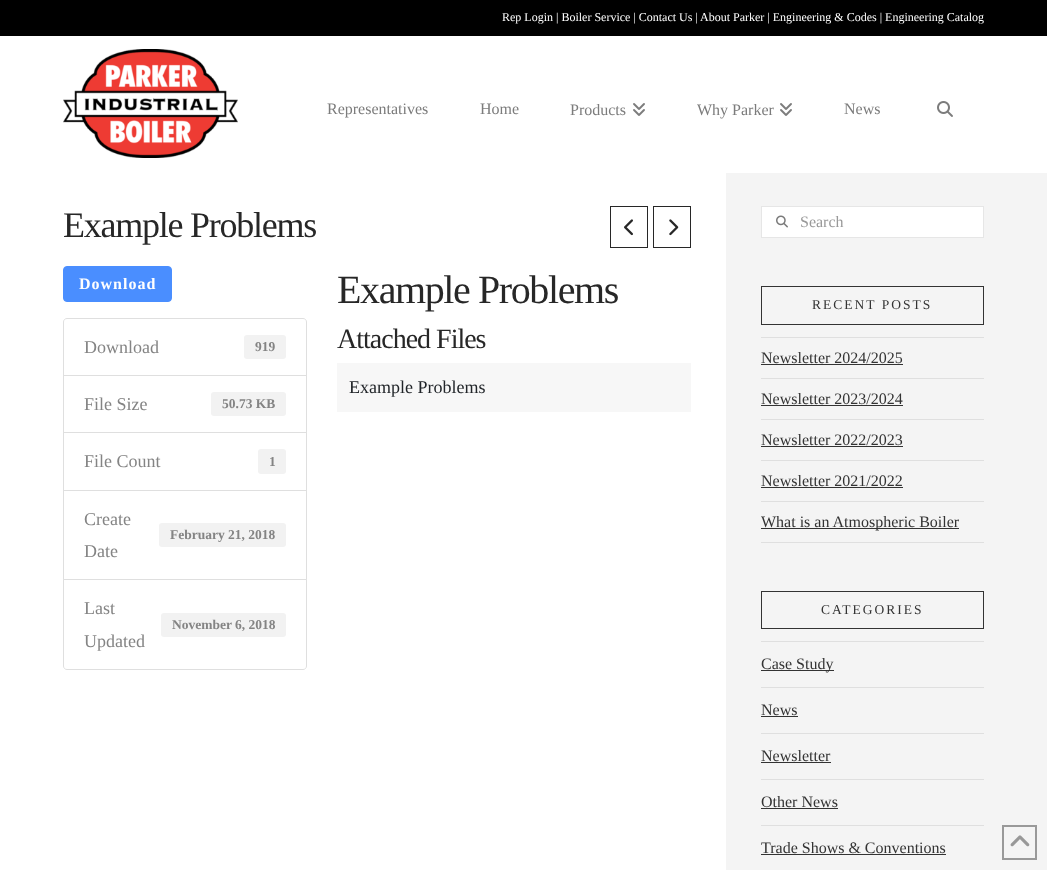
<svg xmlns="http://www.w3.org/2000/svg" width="1047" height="870">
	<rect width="100%" height="100%" fill="#F4F4F4" />
	<rect x="0" y="36" width="1047" height="137" fill="#FFFFFF" />
	<rect x="0" y="0" width="1047" height="36" fill="#000000" />
	<g font-family="Liberation Serif" font-size="12" fill="#FFFFFF">
		<text x="502" y="21">Rep Login | Boiler Service | Contact Us |</text>
		<text x="700" y="21">About Parker | Engineering &amp; Codes | Engineering Catalog</text>
	</g>
	<image x="63" y="49" width="175" height="109" href="assets/img1.png" />
	<g font-family="Liberation Serif" font-size="16" fill="#7C7C7C">
		<text x="327" y="114">Representatives</text>
		<text x="480" y="114">Home</text>
		<text x="570" y="115">Products</text>
	</g>
	<image x="633" y="103" width="12" height="13" href="assets/img2.png" />
	<text x="697" y="115" font-family="Liberation Serif" font-size="16" fill="#7C7C7C">Why Parker</text>
	<image x="780" y="103" width="12" height="13" href="assets/img2.png" />
	<text x="844" y="114" font-family="Liberation Serif" font-size="16" fill="#7C7C7C">News</text>
	<image x="937" y="101" width="16" height="16" href="assets/img3.png" />
	<rect x="0" y="173" width="726" height="697" fill="#FFFFFF" />
	<text x="63" y="237" font-family="Liberation Serif" font-size="36" letter-spacing="-1.25" fill="#272727">Example Problems</text>
	<rect x="610.5" y="206.5" width="37" height="41" fill="none" stroke="#272727" />
	<image x="624" y="219" width="9" height="17" href="assets/img4.png" />
	<rect x="653.5" y="206.5" width="37" height="41" fill="none" stroke="#272727" />
	<image x="669" y="219" width="10" height="17" href="assets/img5.png" />
	<rect x="63.5" y="266.5" width="108" height="35" rx="3.5" fill="#4A8EFF" stroke="#4A8EFF" />
	<text x="79" y="289" font-family="Liberation Serif" font-size="16" font-weight="700" letter-spacing="1" fill="#FFFFFF">Download</text>
	<path d="M67 318.5H303C305 318.5 306.5 320 306.5 322V375.5H63.5V322C63.5 320 65 318.5 67 318.5Z" fill="none" stroke="#DFDFDF" />
	<text x="84" y="353" font-family="Liberation Serif" font-size="18" fill="#848484">Download</text>
	<rect x="244" y="335" width="42" height="24" rx="3" fill="#F2F2F2" />
	<text x="255" y="351" font-family="Liberation Serif" font-size="13.5" font-weight="700" fill="#848484">919</text>
	<rect x="63.5" y="375.5" width="243" height="57" fill="none" stroke="#DFDFDF" />
	<text x="84" y="410" font-family="Liberation Serif" font-size="18" fill="#848484">File Size</text>
	<rect x="211" y="392" width="75" height="24" rx="3" fill="#F2F2F2" />
	<text x="222" y="408" font-family="Liberation Serif" font-size="13.5" font-weight="700" fill="#848484">50.73 KB</text>
	<rect x="63.5" y="432.5" width="243" height="58" fill="none" stroke="#DFDFDF" />
	<text x="84" y="467" font-family="Liberation Serif" font-size="18" fill="#848484">File Count</text>
	<rect x="258" y="449" width="28" height="25" rx="3" fill="#F2F2F2" />
	<text x="269" y="466" font-family="Liberation Serif" font-size="13.5" font-weight="700" fill="#848484">1</text>
	<rect x="63.5" y="490.5" width="243" height="89" fill="none" stroke="#DFDFDF" />
	<text x="84" y="525" font-family="Liberation Serif" font-size="18" fill="#848484">Create</text>
	<rect x="159" y="523" width="127" height="24" rx="3" fill="#F2F2F2" />
	<text x="170" y="539" font-family="Liberation Serif" font-size="13.5" font-weight="700" fill="#848484">February 21, 2018</text>
	<text x="84" y="557" font-family="Liberation Serif" font-size="18" fill="#848484">Date</text>
	<path d="M63.5 579.5H306.5V666C306.5 668 305 669.5 303 669.5H67C65 669.5 63.5 668 63.5 666Z" fill="#FFFFFF" stroke="#DFDFDF" />
	<text x="84" y="614" font-family="Liberation Serif" font-size="18" fill="#848484">Last</text>
	<rect x="161" y="613" width="125" height="24" rx="3" fill="#F2F2F2" />
	<text x="172" y="629" font-family="Liberation Serif" font-size="13.5" font-weight="700" fill="#848484">November 6, 2018</text>
	<text x="84" y="647" font-family="Liberation Serif" font-size="18" fill="#848484">Updated</text>
	<text x="337" y="303" font-family="Liberation Serif" font-size="40" letter-spacing="-1.4" fill="#272727">Example Problems</text>
	<text x="337" y="348" font-family="Liberation Serif" font-size="28" letter-spacing="-1" fill="#272727">Attached Files</text>
	<rect x="337" y="363" width="354" height="49" fill="#F7F7F7" />
	<text x="349" y="393" font-family="Liberation Serif" font-size="18" fill="#212529">Example Problems</text>
	<rect x="761.5" y="206.5" width="222" height="31" fill="#FFFFFF" stroke="#E6E6E6" />
	<image x="776" y="215" width="12" height="13" href="assets/img6.png" />
	<text x="800" y="227" font-family="Liberation Serif" font-size="16" fill="#999999">Search</text>
	<rect x="761.5" y="286.5" width="222" height="38" fill="none" stroke="#333333" />
	<text x="812" y="309" font-family="Liberation Serif" font-size="13.5" letter-spacing="2" fill="#333333">RECENT POSTS</text>
	<rect x="761" y="337" width="223" height="1" fill="#DFDFDF" />
	<text x="761" y="363" font-family="Liberation Serif" font-size="16" fill="#333333">Newsletter 2024/2025</text>
	<rect x="761" y="364" width="142" height="1" fill="#333333" />
	<rect x="761" y="378" width="223" height="1" fill="#DFDFDF" />
	<text x="761" y="404" font-family="Liberation Serif" font-size="16" fill="#333333">Newsletter 2023/2024</text>
	<rect x="761" y="405" width="142" height="1" fill="#333333" />
	<rect x="761" y="419" width="223" height="1" fill="#DFDFDF" />
	<text x="761" y="445" font-family="Liberation Serif" font-size="16" fill="#333333">Newsletter 2022/2023</text>
	<rect x="761" y="446" width="142" height="1" fill="#333333" />
	<rect x="761" y="460" width="223" height="1" fill="#DFDFDF" />
	<text x="761" y="486" font-family="Liberation Serif" font-size="16" fill="#333333">Newsletter 2021/2022</text>
	<rect x="761" y="487" width="142" height="1" fill="#333333" />
	<rect x="761" y="501" width="223" height="1" fill="#DFDFDF" />
	<rect x="761" y="542" width="223" height="1" fill="#DFDFDF" />
	<rect x="761" y="528" width="198" height="1" fill="#333333" />
	<text x="761" y="527" font-family="Liberation Serif" font-size="16" fill="#333333">What is an Atmospheric Boiler</text>
	<rect x="761.5" y="591.5" width="222" height="37" fill="none" stroke="#333333" />
	<text x="821" y="614" font-family="Liberation Serif" font-size="13.5" letter-spacing="2" fill="#333333">CATEGORIES</text>
	<rect x="761" y="641" width="223" height="1" fill="#DFDFDF" />
	<rect x="761" y="670" width="73" height="1" fill="#333333" />
	<text x="761" y="669" font-family="Liberation Serif" font-size="16" fill="#333333">Case Study</text>
	<rect x="761" y="687" width="223" height="1" fill="#DFDFDF" />
	<text x="761" y="715" font-family="Liberation Serif" font-size="16" fill="#333333">News</text>
	<rect x="761" y="716" width="37" height="1" fill="#333333" />
	<rect x="761" y="733" width="223" height="1" fill="#DFDFDF" />
	<text x="761" y="761" font-family="Liberation Serif" font-size="16" fill="#333333">Newsletter</text>
	<rect x="761" y="762" width="70" height="1" fill="#333333" />
	<rect x="761" y="779" width="223" height="1" fill="#DFDFDF" />
	<text x="761" y="807" font-family="Liberation Serif" font-size="16" fill="#333333">Other News</text>
	<rect x="761" y="808" width="77" height="1" fill="#333333" />
	<rect x="761" y="825" width="223" height="1" fill="#DFDFDF" />
	<text x="761" y="853" font-family="Liberation Serif" font-size="16" fill="#333333">Trade Shows &amp; Conventions</text>
	<rect x="761" y="854" width="185" height="1" fill="#333333" />
	<rect x="1003" y="826" width="33" height="33" fill="none" stroke="#999999" stroke-width="2" />
	<image x="1010" y="835" width="20" height="12" href="assets/img7.png" />
</svg>
